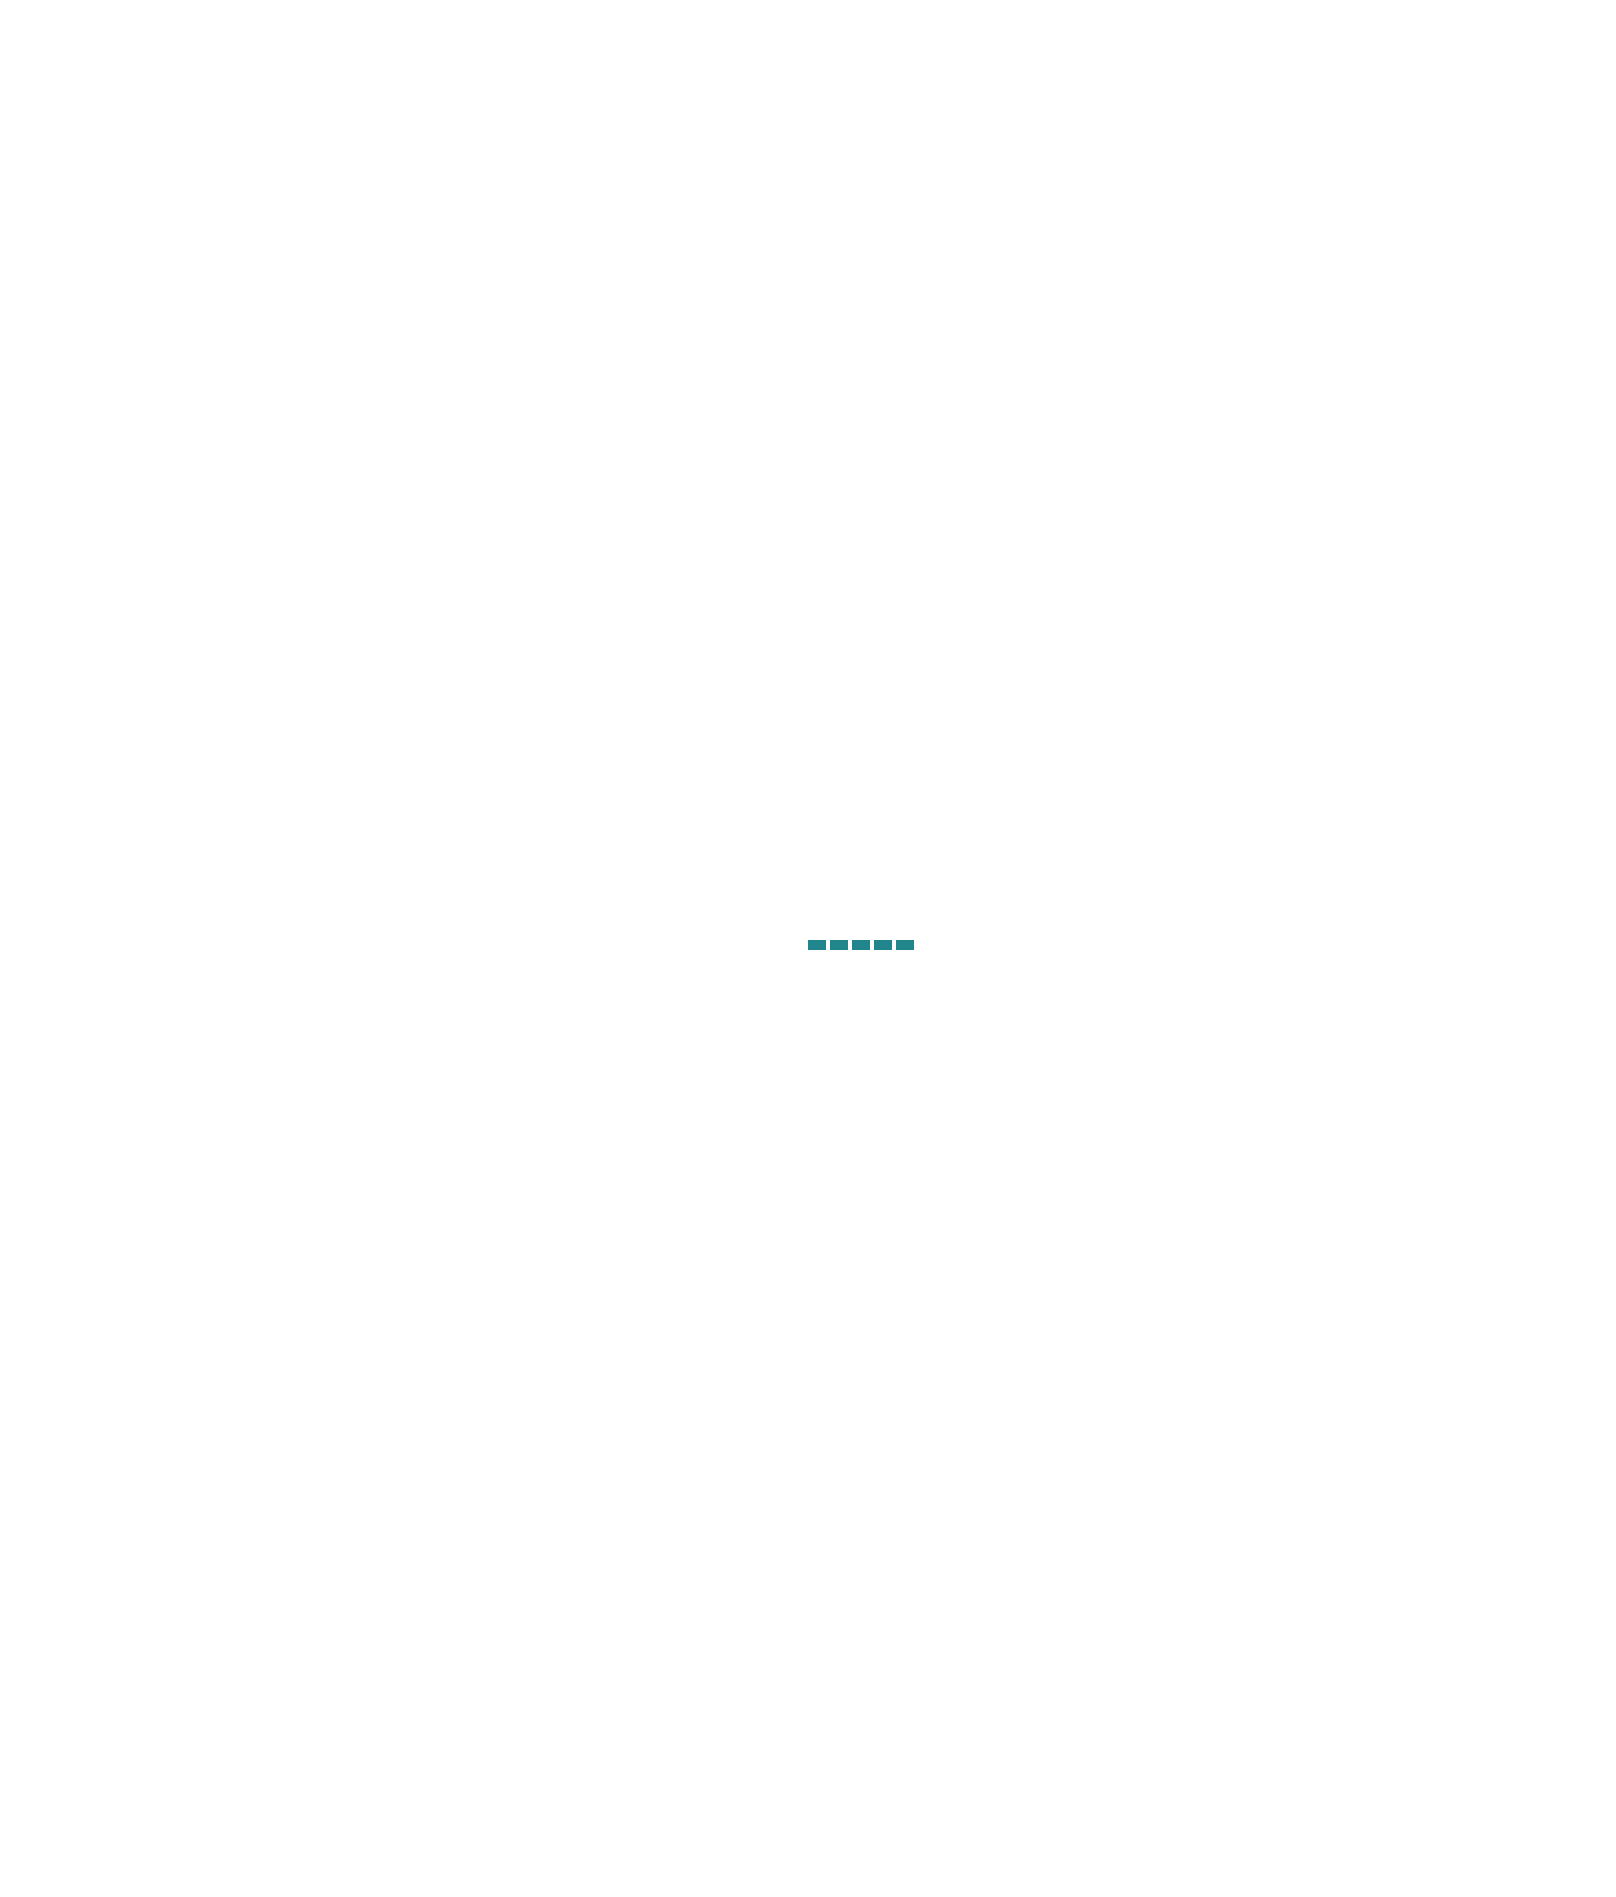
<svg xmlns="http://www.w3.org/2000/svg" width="1616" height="1897">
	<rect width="100%" height="100%" fill="#FFFFFF" />
	<rect x="808" y="940" width="18" height="10" fill="#21858C" />
	<rect x="830" y="940" width="18" height="10" fill="#21858C" />
	<rect x="852" y="940" width="18" height="10" fill="#21858C" />
	<rect x="874" y="940" width="18" height="10" fill="#21858C" />
	<rect x="896" y="940" width="18" height="10" fill="#21858C" />
</svg>
